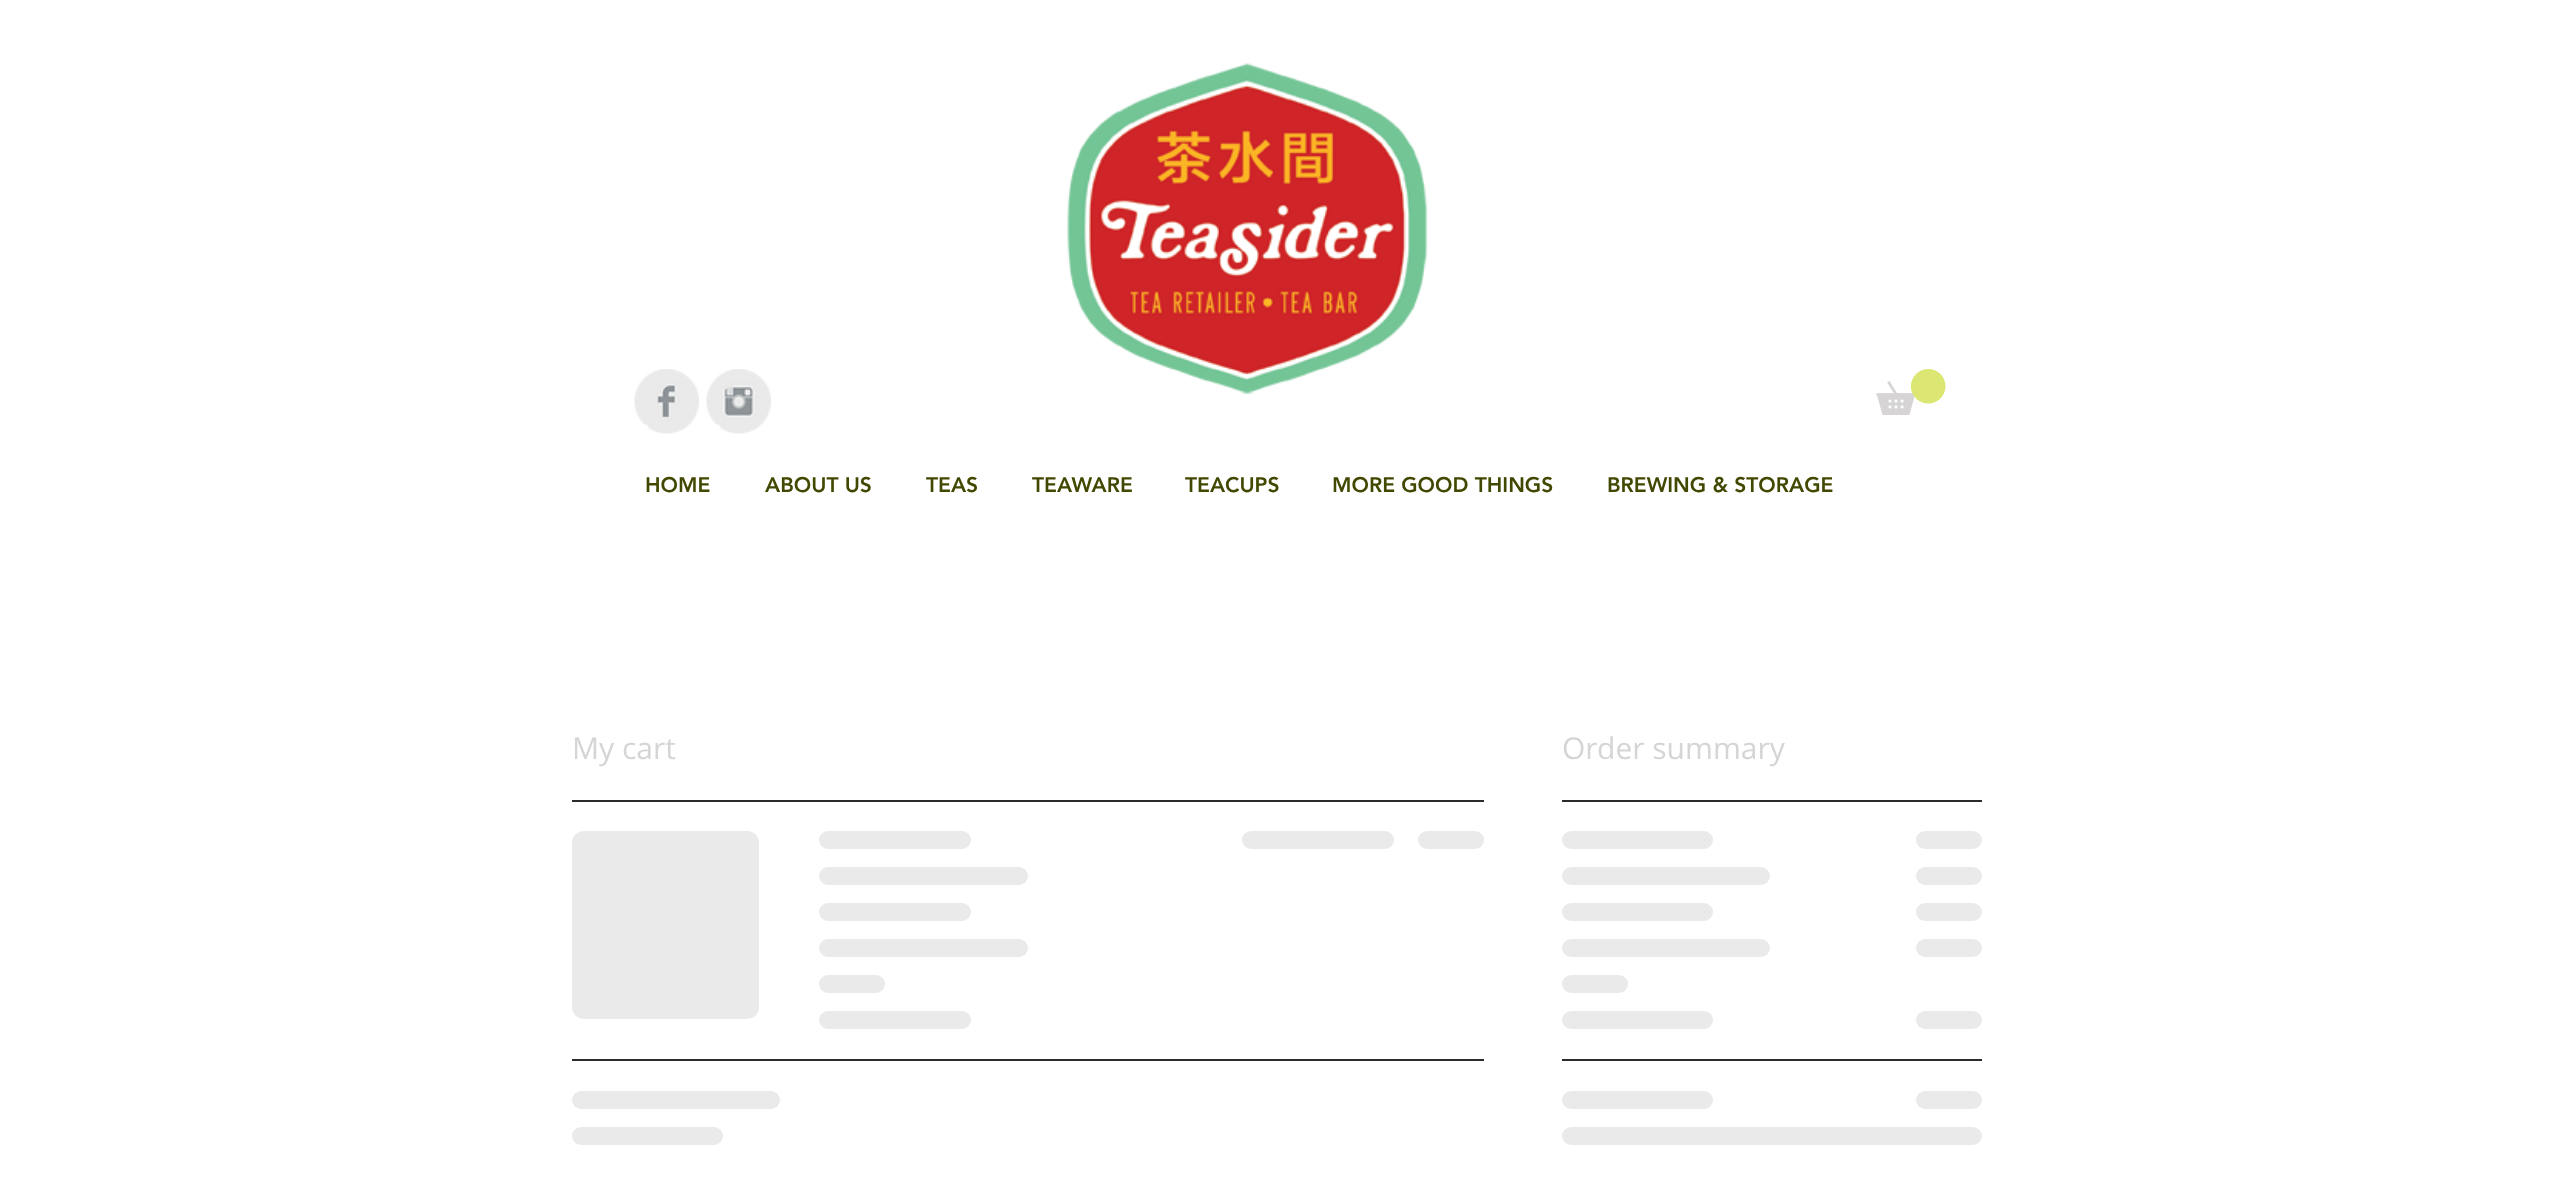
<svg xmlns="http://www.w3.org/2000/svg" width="2553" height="1194">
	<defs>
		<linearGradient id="g1" gradientUnits="userSpaceOnUse" x1="572" y1="925" x2="1322" y2="925"><stop offset="0.25" stop-color="#EAEAEA" /><stop offset="0.37" stop-color="#D5D5D5" /><stop offset="0.63" stop-color="#EAEAEA" /></linearGradient>
		<linearGradient id="g2" gradientUnits="userSpaceOnUse" x1="819" y1="840" x2="1425" y2="840"><stop offset="0.25" stop-color="#EAEAEA" /><stop offset="0.37" stop-color="#D5D5D5" /><stop offset="0.63" stop-color="#EAEAEA" /></linearGradient>
		<linearGradient id="g3" gradientUnits="userSpaceOnUse" x1="819" y1="876" x2="1653" y2="876"><stop offset="0.25" stop-color="#EAEAEA" /><stop offset="0.37" stop-color="#D5D5D5" /><stop offset="0.63" stop-color="#EAEAEA" /></linearGradient>
		<linearGradient id="g4" gradientUnits="userSpaceOnUse" x1="819" y1="912" x2="1425" y2="912"><stop offset="0.25" stop-color="#EAEAEA" /><stop offset="0.37" stop-color="#D5D5D5" /><stop offset="0.63" stop-color="#EAEAEA" /></linearGradient>
		<linearGradient id="g5" gradientUnits="userSpaceOnUse" x1="819" y1="948" x2="1653" y2="948"><stop offset="0.25" stop-color="#EAEAEA" /><stop offset="0.37" stop-color="#D5D5D5" /><stop offset="0.63" stop-color="#EAEAEA" /></linearGradient>
		<linearGradient id="g6" gradientUnits="userSpaceOnUse" x1="819" y1="984" x2="1083" y2="984"><stop offset="0.25" stop-color="#EAEAEA" /><stop offset="0.37" stop-color="#D5D5D5" /><stop offset="0.63" stop-color="#EAEAEA" /></linearGradient>
		<linearGradient id="g7" gradientUnits="userSpaceOnUse" x1="819" y1="1020" x2="1425" y2="1020"><stop offset="0.25" stop-color="#EAEAEA" /><stop offset="0.37" stop-color="#D5D5D5" /><stop offset="0.63" stop-color="#EAEAEA" /></linearGradient>
		<linearGradient id="g8" gradientUnits="userSpaceOnUse" x1="1242" y1="840" x2="1848" y2="840"><stop offset="0.25" stop-color="#EAEAEA" /><stop offset="0.37" stop-color="#D5D5D5" /><stop offset="0.63" stop-color="#EAEAEA" /></linearGradient>
		<linearGradient id="g9" gradientUnits="userSpaceOnUse" x1="1418" y1="840" x2="1682" y2="840"><stop offset="0.25" stop-color="#EAEAEA" /><stop offset="0.37" stop-color="#D5D5D5" /><stop offset="0.63" stop-color="#EAEAEA" /></linearGradient>
		<linearGradient id="g10" gradientUnits="userSpaceOnUse" x1="572" y1="1100" x2="1406" y2="1100"><stop offset="0.25" stop-color="#EAEAEA" /><stop offset="0.37" stop-color="#D5D5D5" /><stop offset="0.63" stop-color="#EAEAEA" /></linearGradient>
		<linearGradient id="g11" gradientUnits="userSpaceOnUse" x1="572" y1="1136" x2="1178" y2="1136"><stop offset="0.25" stop-color="#EAEAEA" /><stop offset="0.37" stop-color="#D5D5D5" /><stop offset="0.63" stop-color="#EAEAEA" /></linearGradient>
		<linearGradient id="g12" gradientUnits="userSpaceOnUse" x1="1562" y1="840" x2="2168" y2="840"><stop offset="0.25" stop-color="#EAEAEA" /><stop offset="0.37" stop-color="#D5D5D5" /><stop offset="0.63" stop-color="#EAEAEA" /></linearGradient>
		<linearGradient id="g13" gradientUnits="userSpaceOnUse" x1="1916" y1="840" x2="2180" y2="840"><stop offset="0.25" stop-color="#EAEAEA" /><stop offset="0.37" stop-color="#D5D5D5" /><stop offset="0.63" stop-color="#EAEAEA" /></linearGradient>
		<linearGradient id="g14" gradientUnits="userSpaceOnUse" x1="1562" y1="876" x2="2396" y2="876"><stop offset="0.25" stop-color="#EAEAEA" /><stop offset="0.37" stop-color="#D5D5D5" /><stop offset="0.63" stop-color="#EAEAEA" /></linearGradient>
		<linearGradient id="g15" gradientUnits="userSpaceOnUse" x1="1916" y1="876" x2="2180" y2="876"><stop offset="0.25" stop-color="#EAEAEA" /><stop offset="0.37" stop-color="#D5D5D5" /><stop offset="0.63" stop-color="#EAEAEA" /></linearGradient>
		<linearGradient id="g16" gradientUnits="userSpaceOnUse" x1="1562" y1="912" x2="2168" y2="912"><stop offset="0.25" stop-color="#EAEAEA" /><stop offset="0.37" stop-color="#D5D5D5" /><stop offset="0.63" stop-color="#EAEAEA" /></linearGradient>
		<linearGradient id="g17" gradientUnits="userSpaceOnUse" x1="1916" y1="912" x2="2180" y2="912"><stop offset="0.25" stop-color="#EAEAEA" /><stop offset="0.37" stop-color="#D5D5D5" /><stop offset="0.63" stop-color="#EAEAEA" /></linearGradient>
		<linearGradient id="g18" gradientUnits="userSpaceOnUse" x1="1562" y1="948" x2="2396" y2="948"><stop offset="0.25" stop-color="#EAEAEA" /><stop offset="0.37" stop-color="#D5D5D5" /><stop offset="0.63" stop-color="#EAEAEA" /></linearGradient>
		<linearGradient id="g19" gradientUnits="userSpaceOnUse" x1="1916" y1="948" x2="2180" y2="948"><stop offset="0.25" stop-color="#EAEAEA" /><stop offset="0.37" stop-color="#D5D5D5" /><stop offset="0.63" stop-color="#EAEAEA" /></linearGradient>
		<linearGradient id="g20" gradientUnits="userSpaceOnUse" x1="1562" y1="984" x2="1826" y2="984"><stop offset="0.25" stop-color="#EAEAEA" /><stop offset="0.37" stop-color="#D5D5D5" /><stop offset="0.63" stop-color="#EAEAEA" /></linearGradient>
		<linearGradient id="g21" gradientUnits="userSpaceOnUse" x1="1562" y1="1020" x2="2168" y2="1020"><stop offset="0.25" stop-color="#EAEAEA" /><stop offset="0.37" stop-color="#D5D5D5" /><stop offset="0.63" stop-color="#EAEAEA" /></linearGradient>
		<linearGradient id="g22" gradientUnits="userSpaceOnUse" x1="1916" y1="1020" x2="2180" y2="1020"><stop offset="0.25" stop-color="#EAEAEA" /><stop offset="0.37" stop-color="#D5D5D5" /><stop offset="0.63" stop-color="#EAEAEA" /></linearGradient>
		<linearGradient id="g23" gradientUnits="userSpaceOnUse" x1="1562" y1="1100" x2="2168" y2="1100"><stop offset="0.25" stop-color="#EAEAEA" /><stop offset="0.37" stop-color="#D5D5D5" /><stop offset="0.63" stop-color="#EAEAEA" /></linearGradient>
		<linearGradient id="g24" gradientUnits="userSpaceOnUse" x1="1916" y1="1100" x2="2180" y2="1100"><stop offset="0.25" stop-color="#EAEAEA" /><stop offset="0.37" stop-color="#D5D5D5" /><stop offset="0.63" stop-color="#EAEAEA" /></linearGradient>
		<linearGradient id="g25" gradientUnits="userSpaceOnUse" x1="1562" y1="1136" x2="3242" y2="1136"><stop offset="0.25" stop-color="#EAEAEA" /><stop offset="0.37" stop-color="#D5D5D5" /><stop offset="0.63" stop-color="#EAEAEA" /></linearGradient>
	</defs>
	<rect width="100%" height="100%" fill="#FFFFFF" />
	<image x="1067" y="63" width="361" height="332" href="assets/img1.png" />
	<image x="634" y="369" width="65" height="65" href="assets/img2.png" />
	<image x="706" y="369" width="65" height="65" href="assets/img3.png" />
	<image x="1876" y="369" width="70" height="46" href="assets/img4.png" />
	<g font-family="'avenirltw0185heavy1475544'" font-size="21" font-weight="900" fill="#424800">
		<text x="645" y="492">HOME</text>
		<text x="765" y="492">ABOUT US</text>
		<text x="926" y="492">TEAS</text>
		<text x="1032" y="492">TEAWARE</text>
		<text x="1185" y="492">TEACUPS</text>
		<text x="1332" y="492">MORE GOOD THINGS</text>
		<text x="1607" y="492">BREWING &amp; STORAGE</text>
	</g>
	<rect x="572" y="800" width="912" height="2" fill="#2C2B2B" />
	<text x="572" y="759" font-family="Open Sans" font-size="30" fill="#D6D4D4">My cart</text>
	<rect x="572" y="831" width="187" height="188" rx="12" fill="url(#g1)" />
	<rect x="819" y="831" width="152" height="18" rx="9" fill="url(#g2)" />
	<rect x="819" y="867" width="209" height="18" rx="9" fill="url(#g3)" />
	<rect x="819" y="903" width="152" height="18" rx="9" fill="url(#g4)" />
	<rect x="819" y="939" width="209" height="18" rx="9" fill="url(#g5)" />
	<rect x="819" y="975" width="66" height="18" rx="9" fill="url(#g6)" />
	<rect x="819" y="1011" width="152" height="18" rx="9" fill="url(#g7)" />
	<rect x="1242" y="831" width="152" height="18" rx="9" fill="url(#g8)" />
	<rect x="1418" y="831" width="66" height="18" rx="9" fill="url(#g9)" />
	<rect x="572" y="1059" width="912" height="2" fill="#2C2B2B" />
	<rect x="572" y="1091" width="208" height="18" rx="9" fill="url(#g10)" />
	<rect x="572" y="1127" width="151" height="18" rx="9" fill="url(#g11)" />
	<rect x="1562" y="800" width="420" height="2" fill="#2C2B2B" />
	<text x="1562" y="759" font-family="Open Sans" font-size="30" fill="#D6D4D4">Order summary</text>
	<rect x="1562" y="831" width="151" height="18" rx="9" fill="url(#g12)" />
	<rect x="1916" y="831" width="66" height="18" rx="9" fill="url(#g13)" />
	<rect x="1562" y="867" width="208" height="18" rx="9" fill="url(#g14)" />
	<rect x="1916" y="867" width="66" height="18" rx="9" fill="url(#g15)" />
	<rect x="1562" y="903" width="151" height="18" rx="9" fill="url(#g16)" />
	<rect x="1916" y="903" width="66" height="18" rx="9" fill="url(#g17)" />
	<rect x="1562" y="939" width="208" height="18" rx="9" fill="url(#g18)" />
	<rect x="1916" y="939" width="66" height="18" rx="9" fill="url(#g19)" />
	<rect x="1562" y="975" width="66" height="18" rx="9" fill="url(#g20)" />
	<rect x="1562" y="1011" width="151" height="18" rx="9" fill="url(#g21)" />
	<rect x="1916" y="1011" width="66" height="18" rx="9" fill="url(#g22)" />
	<rect x="1562" y="1059" width="420" height="2" fill="#2C2B2B" />
	<rect x="1562" y="1091" width="151" height="18" rx="9" fill="url(#g23)" />
	<rect x="1916" y="1091" width="66" height="18" rx="9" fill="url(#g24)" />
	<rect x="1562" y="1127" width="420" height="18" rx="9" fill="url(#g25)" />
</svg>
